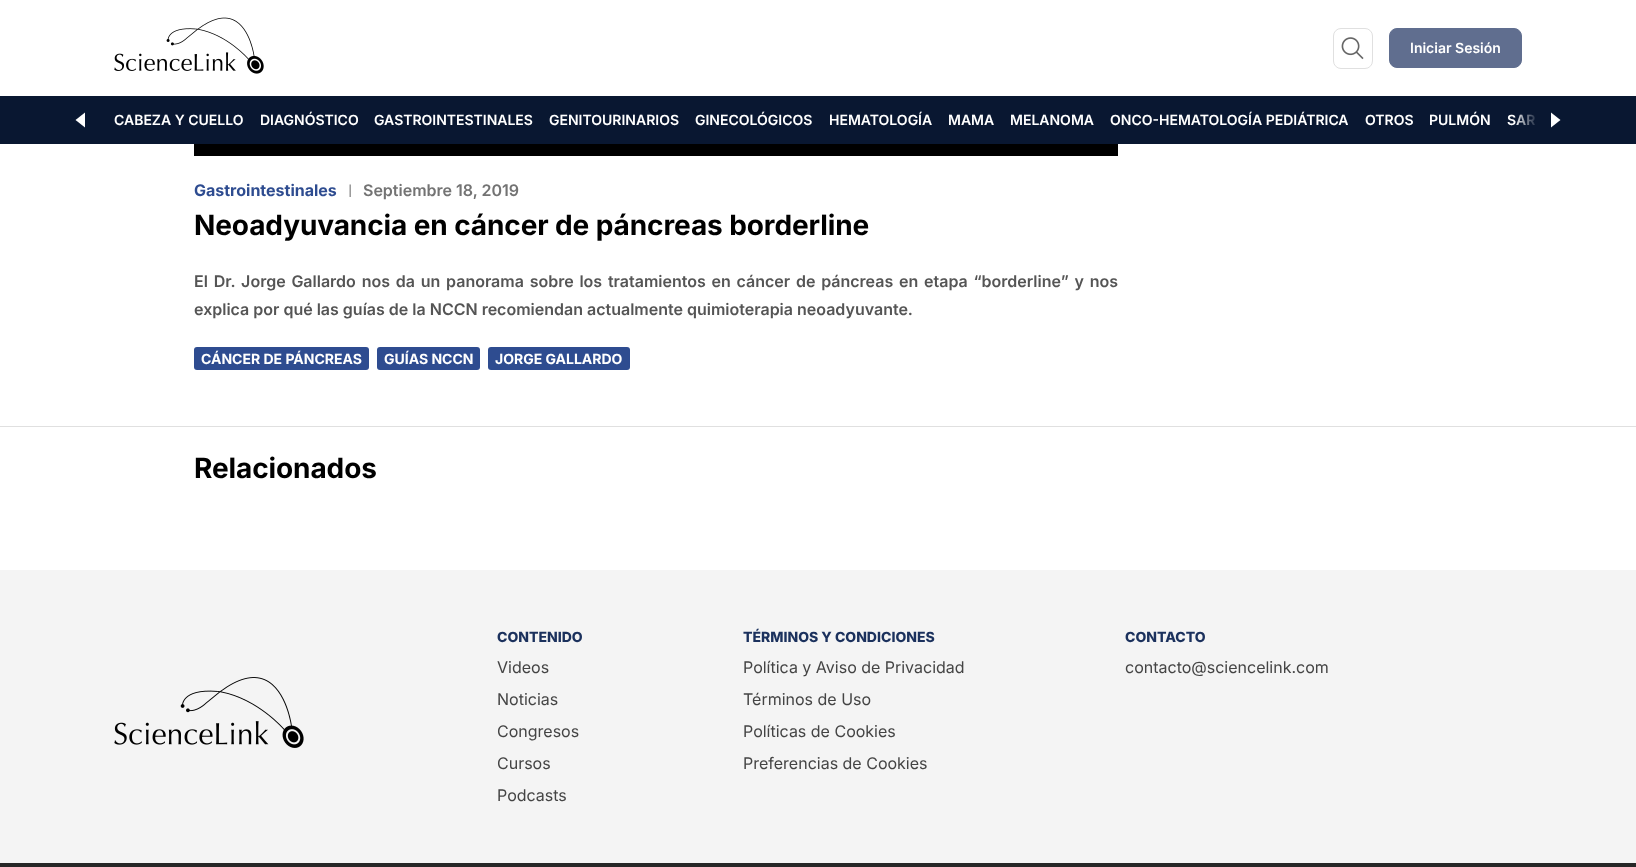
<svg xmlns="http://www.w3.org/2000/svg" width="1636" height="867">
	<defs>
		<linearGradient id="g1" gradientUnits="userSpaceOnUse" x1="1514" y1="120" x2="1538" y2="120"><stop offset="0" stop-color="#091731" stop-opacity="0" /><stop offset="1" stop-color="#091731" /></linearGradient>
	</defs>
	<rect width="100%" height="100%" fill="#FFFFFF" />
	<image x="114" y="17" width="150" height="57" href="assets/img1.png" />
	<rect x="1333.5" y="28.5" width="39" height="40" rx="7.5" fill="none" stroke="#E0E0E0" />
	<image x="1341" y="37" width="23" height="23" href="assets/img2.png" />
	<rect x="1389.5" y="28.5" width="132" height="39" rx="7.5" fill="#606E8F" stroke="#606E8F" />
	<text x="1410" y="53" font-family="Inter" font-size="14" font-weight="600" fill="#FFFFFF">Iniciar Sesión</text>
	<rect x="0" y="96" width="1636" height="48" fill="#091731" />
	<path d="M85 127.5L75.5 120L85 112.5Z" fill="#FFFFFF" />
	<g font-family="Inter" font-size="14" font-weight="600" fill="#FFFFFF">
		<text x="114" y="125">CABEZA Y CUELLO</text>
		<text x="260" y="125">DIAGNÓSTICO</text>
		<text x="374" y="125">GASTROINTESTINALES</text>
		<text x="549" y="125">GENITOURINARIOS</text>
		<text x="695" y="125">GINECOLÓGICOS</text>
		<text x="829" y="125">HEMATOLOGÍA</text>
		<text x="948" y="125">MAMA</text>
		<text x="1010" y="125">MELANOMA</text>
		<text x="1110" y="125">ONCO-HEMATOLOGÍA PEDIÁTRICA</text>
		<text x="1365" y="125">OTROS</text>
		<text x="1429" y="125">PULMÓN</text>
		<text x="1507" y="125">SAR</text>
	</g>
	<path d="M1551 112.5L1560.5 120L1551 127.5Z" fill="#FFFFFF" />
	<rect x="1516" y="114" width="19" height="11" fill="url(#g1)" />
	<rect x="194" y="144" width="924" height="12" fill="#000000" />
	<text x="194" y="196" font-family="Inter" font-size="16" font-weight="700" fill="#2E4C90">Gastrointestinales</text>
	<text x="345" y="194" font-family="DejaVu Sans" font-size="12" font-weight="700" fill="#8F8F8F">❘</text>
	<text x="363" y="196" font-family="Inter" font-size="16" font-weight="600" fill="#737373">Septiembre 18, 2019</text>
	<text x="194" y="235" font-family="Inter" font-size="28" font-weight="700" letter-spacing="-0.1" fill="#000000">Neoadyuvancia en cáncer de páncreas borderline</text>
	<g font-family="Inter" font-size="16" font-weight="600" fill="#555555">
		<text x="194" y="287" word-spacing="1.75">El Dr. Jorge Gallardo nos da un panorama sobre los tratamientos en cáncer de páncreas en etapa “borderline” y nos</text>
		<text x="194" y="315">explica por qué las guías de la NCCN recomiendan actualmente quimioterapia neoadyuvante.</text>
	</g>
	<rect x="194" y="347" width="175" height="23" rx="3" fill="#2E4C90" />
	<text x="201" y="364" font-family="Inter" font-size="14" font-weight="700" fill="#FFFFFF">CÁNCER DE PÁNCREAS</text>
	<rect x="377" y="347" width="103" height="23" rx="3" fill="#2E4C90" />
	<text x="384" y="364" font-family="Inter" font-size="14" font-weight="700" fill="#FFFFFF">GUÍAS NCCN</text>
	<rect x="488" y="347" width="142" height="23" rx="3" fill="#2E4C90" />
	<text x="495" y="364" font-family="Inter" font-size="14" font-weight="700" fill="#FFFFFF">JORGE GALLARDO</text>
	<rect x="0" y="426" width="1636" height="1" fill="#E0E0E0" />
	<text x="194" y="478" font-family="Inter" font-size="28" font-weight="700" letter-spacing="-0.1" fill="#000000">Relacionados</text>
	<rect x="0" y="570" width="1636" height="293" fill="#F4F4F4" />
	<image x="114" y="677" width="190" height="71" href="assets/img3.png" />
	<text x="497" y="642" font-family="Inter" font-size="14" font-weight="800" fill="#1B315D">CONTENIDO</text>
	<g font-family="Inter" font-size="16" fill="#444444">
		<text x="497" y="673">Videos</text>
		<text x="497" y="705">Noticias</text>
		<text x="497" y="737">Congresos</text>
		<text x="497" y="769">Cursos</text>
		<text x="497" y="801">Podcasts</text>
	</g>
	<text x="743" y="642" font-family="Inter" font-size="14" font-weight="800" fill="#1B315D">TÉRMINOS Y CONDICIONES</text>
	<g font-family="Inter" font-size="16" fill="#444444">
		<text x="743" y="673">Política y Aviso de Privacidad</text>
		<text x="743" y="705">Términos de Uso</text>
		<text x="743" y="737">Políticas de Cookies</text>
		<text x="743" y="769">Preferencias de Cookies</text>
	</g>
	<text x="1125" y="642" font-family="Inter" font-size="14" font-weight="800" fill="#1B315D">CONTACTO</text>
	<text x="1125" y="673" font-family="Inter" font-size="16" fill="#444444">contacto@sciencelink.com</text>
	<rect x="0" y="863" width="1636" height="4" fill="#262626" />
</svg>
